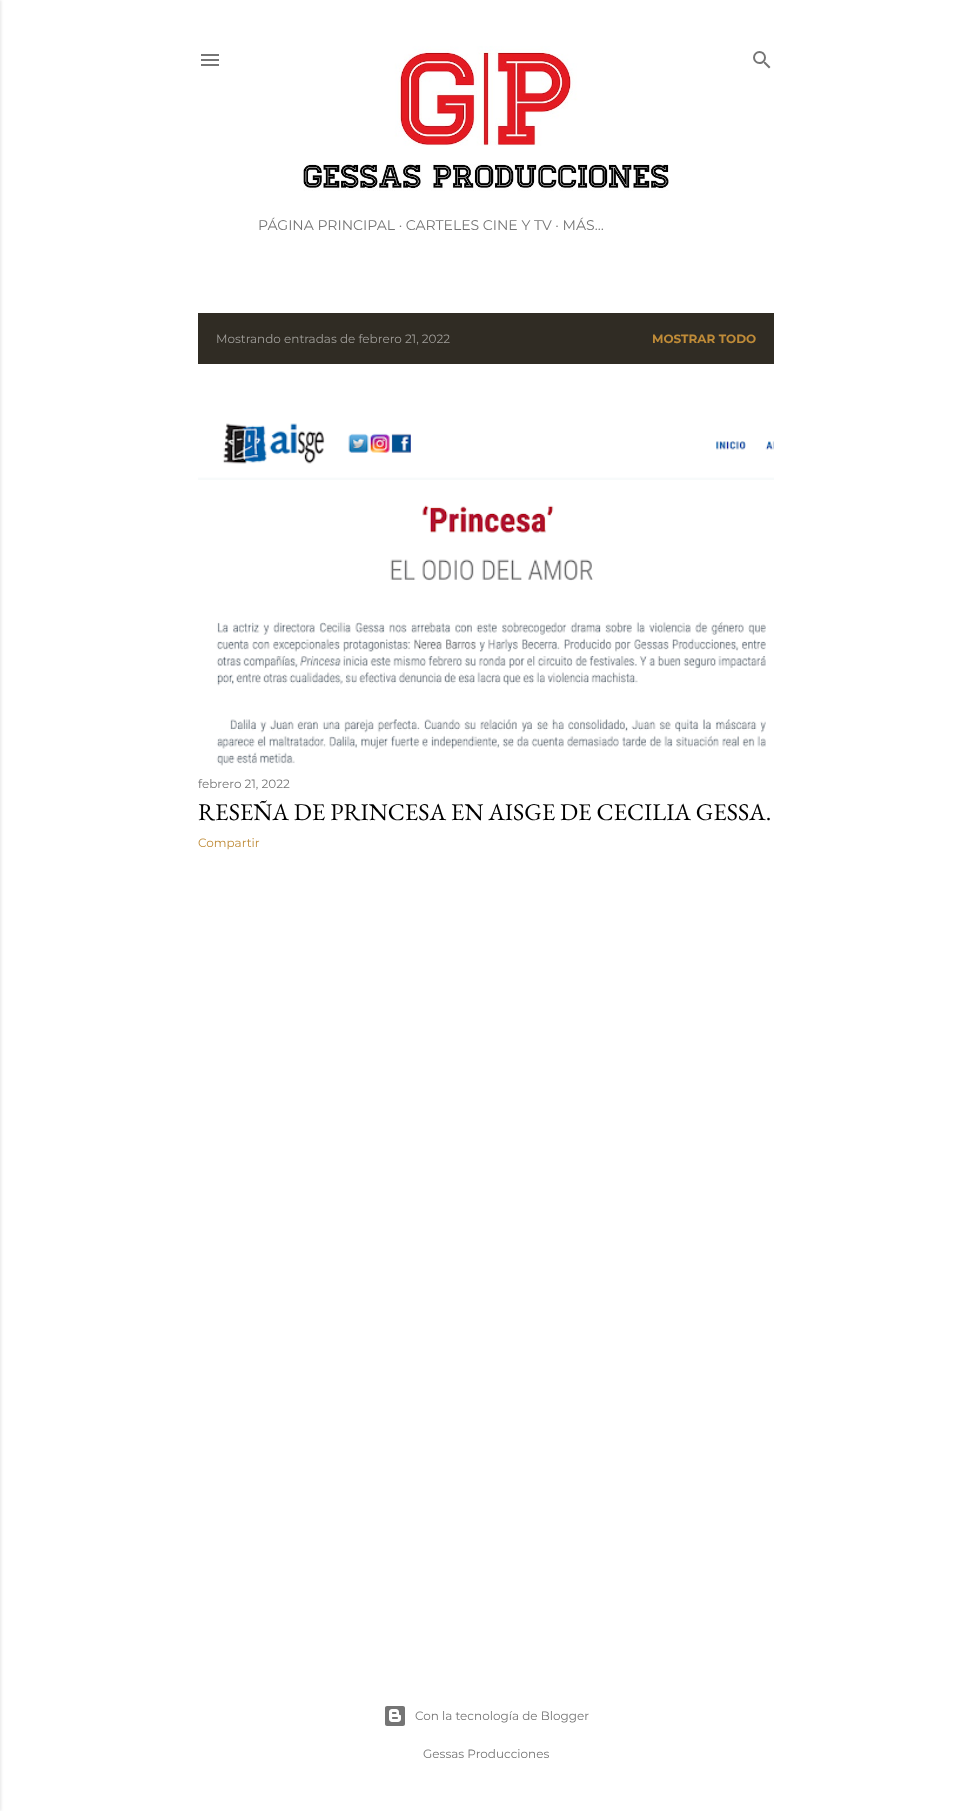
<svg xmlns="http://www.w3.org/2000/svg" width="972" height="1811">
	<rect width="100%" height="100%" fill="#FFFFFF" />
	<rect x="-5" y="0" width="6" height="1811" fill="#000000" fill-opacity="0.1" filter="blur(1.5px)" />
	<image x="201" y="54" width="18" height="12" href="assets/img1.png" />
	<image x="753" y="51" width="18" height="18" href="assets/img2.png" />
	<image x="303" y="46" width="366" height="145" href="assets/img3.png" />
	<text x="258" y="230" font-family="Montserrat" font-size="14" fill="#757575">PÁGINA PRINCIPAL · CARTELES CINE Y TV · MÁS…</text>
	<rect x="198" y="313" width="576" height="51" fill="#302C24" />
	<text x="216" y="343" font-family="Montserrat" font-size="12" fill="#A09E9A">Mostrando entradas de febrero 21, 2022</text>
	<text x="652" y="343" font-family="Montserrat" font-size="12" font-weight="700" fill="#BF8B38">MOSTRAR TODO</text>
	<image x="198" y="423" width="576" height="343" href="assets/img4.png" />
	<text x="198" y="788" font-family="Montserrat" font-size="12" fill="#757575">febrero 21, 2022</text>
	<text x="198" y="820" font-family="EB Garamond" font-size="24" fill="#000000">RESEÑA DE PRINCESA EN AISGE DE CECILIA GESSA.</text>
	<text x="198" y="847" font-family="Montserrat" font-size="12" fill="#BF8B38">Compartir</text>
	<image x="385" y="1706" width="20" height="20" href="assets/img5.png" />
	<g font-family="Montserrat" font-size="12" fill="#757575">
		<text x="415" y="1720">Con la tecnología de Blogger</text>
		<text x="423" y="1758">Gessas Producciones</text>
	</g>
</svg>
